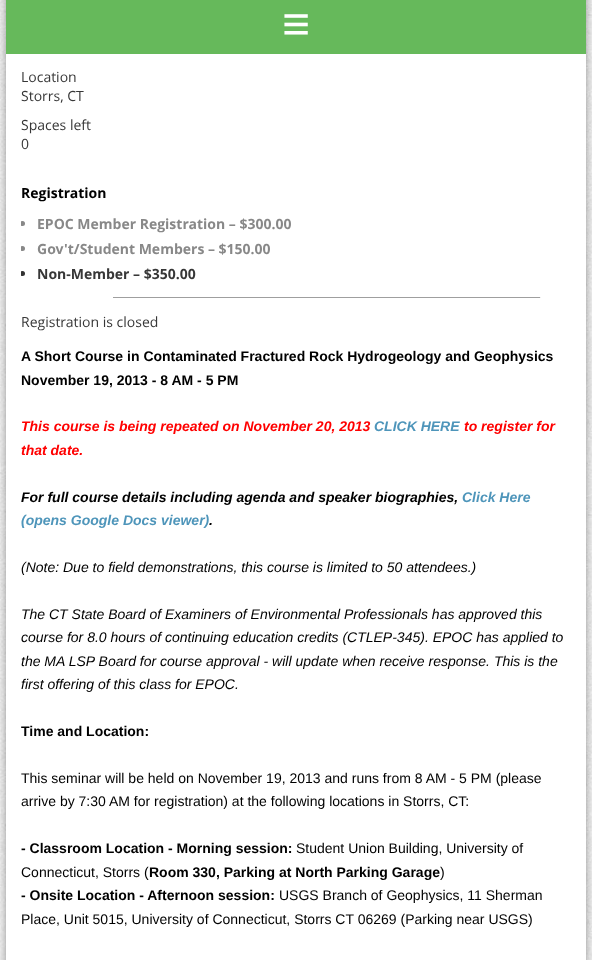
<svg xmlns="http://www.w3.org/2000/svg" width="592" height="960">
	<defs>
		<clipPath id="clip1"><rect x="21" y="0" width="550" height="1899" /></clipPath>
	</defs>
	<rect width="100%" height="100%" fill="#FFFFFF" />
	<image x="0" y="0" width="592" height="960" href="assets/img1.png" />
	<image x="1" y="0" width="590" height="960" href="assets/img2.png" />
	<rect x="6" y="0" width="580" height="54" fill="#66B95B" />
	<text x="282" y="41" font-family="Liberation Serif" font-size="50" font-weight="700" fill="#FFFFFF">≡</text>
	<rect x="6" y="54" width="580" height="906" fill="#FFFFFF" />
	<g font-family="Open Sans" font-size="14" fill="#373737">
		<text x="21" y="82">Location</text>
		<text x="21" y="101">Storrs, CT</text>
		<text x="21" y="130">Spaces left</text>
		<text x="21" y="149">0</text>
	</g>
	<text x="21" y="198" font-family="Open Sans" font-size="14" font-weight="700" fill="#000000">Registration</text>
	<g clip-path="url(#clip1)">
		<circle cx="22.5" cy="223.5" r="2.5" fill="#888888" />
	</g>
	<text x="37" y="229" font-family="Open Sans" font-size="14" font-weight="700" fill="#888888">EPOC Member Registration – $300.00</text>
	<g clip-path="url(#clip1)">
		<circle cx="22.5" cy="248.5" r="2.5" fill="#888888" />
	</g>
	<text x="37" y="254" font-family="Open Sans" font-size="14" font-weight="700" fill="#888888">Gov't/Student Members – $150.00</text>
	<g clip-path="url(#clip1)">
		<circle cx="22.5" cy="273.5" r="2.5" fill="#333333" />
	</g>
	<text x="37" y="279" font-family="Open Sans" font-size="14" font-weight="700" fill="#373737">Non-Member – $350.00</text>
	<rect x="113" y="297" width="428" height="1" fill="#9F9F9F" />
	<rect x="540" y="297" width="1" height="1" fill="#EEEEEE" />
	<text x="21" y="327" font-family="Open Sans" font-size="14" fill="#373737">Registration is closed</text>
	<g font-family="Liberation Sans" font-size="14" font-weight="700" fill="#000000">
		<text x="21" y="361">A Short Course in Contaminated Fractured Rock Hydrogeology and Geophysics</text>
		<text x="21" y="385">November 19, 2013 - 8 AM - 5 PM</text>
	</g>
	<text x="21" y="431" font-family="Liberation Sans" font-size="14" font-weight="700" font-style="italic" fill="#FF0000">This course is being repeated on November 20, 2013</text>
	<text x="374" y="431" font-family="Liberation Sans" font-size="14" font-weight="700" font-style="italic" fill="#4E95BA">CLICK HERE</text>
	<g font-family="Liberation Sans" font-size="14" font-weight="700" font-style="italic" fill="#FF0000">
		<text x="464" y="431">to register for</text>
		<text x="21" y="455">that date.</text>
	</g>
	<text x="21" y="502" font-family="Liberation Sans" font-size="14" font-weight="700" font-style="italic" fill="#000000">For full course details including agenda and speaker biographies,</text>
	<g font-family="Liberation Sans" font-size="14" font-weight="700" font-style="italic" fill="#4E95BA">
		<text x="462" y="502">Click Here</text>
		<text x="21" y="525">(opens Google Docs viewer)</text>
	</g>
	<text x="209" y="525" font-family="Liberation Sans" font-size="14" font-weight="700" font-style="italic" fill="#000000">.</text>
	<g font-family="Liberation Sans" font-size="14" font-style="italic" fill="#000000">
		<text x="21" y="572">(Note: Due to field demonstrations, this course is limited to 50 attendees.)</text>
		<text x="21" y="619">The CT State Board of Examiners of Environmental Professionals has approved this</text>
		<text x="21" y="642">course for 8.0 hours of continuing education credits (CTLEP-345). EPOC has applied to</text>
		<text x="21" y="666">the MA LSP Board for course approval - will update when receive response. This is the</text>
		<text x="21" y="689">first offering of this class for EPOC.</text>
	</g>
	<text x="21" y="736" font-family="Liberation Sans" font-size="14" font-weight="700" fill="#000000">Time and Location:</text>
	<g font-family="Liberation Sans" font-size="14" fill="#000000">
		<text x="21" y="783">This seminar will be held on November 19, 2013 and runs from 8 AM - 5 PM (please</text>
		<text x="21" y="806">arrive by 7:30 AM for registration) at the following locations in Storrs, CT:</text>
	</g>
	<text x="21" y="853" font-family="Liberation Sans" font-size="14" font-weight="700" fill="#000000">- Classroom Location - Morning session:</text>
	<g font-family="Liberation Sans" font-size="14" fill="#000000">
		<text x="296" y="853">Student Union Building, University of</text>
		<text x="21" y="877">Connecticut, Storrs (</text>
	</g>
	<text x="149" y="877" font-family="Liberation Sans" font-size="14" font-weight="700" fill="#000000">Room 330, Parking at North Parking Garage</text>
	<text x="440" y="877" font-family="Liberation Sans" font-size="14" fill="#000000">)</text>
	<text x="21" y="900" font-family="Liberation Sans" font-size="14" font-weight="700" fill="#000000">- Onsite Location - Afternoon session:</text>
	<g font-family="Liberation Sans" font-size="14" fill="#000000">
		<text x="279" y="900">USGS Branch of Geophysics, 11 Sherman</text>
		<text x="21" y="924">Place, Unit 5015, University of Connecticut, Storrs CT 06269 (Parking near USGS)</text>
	</g>
</svg>
